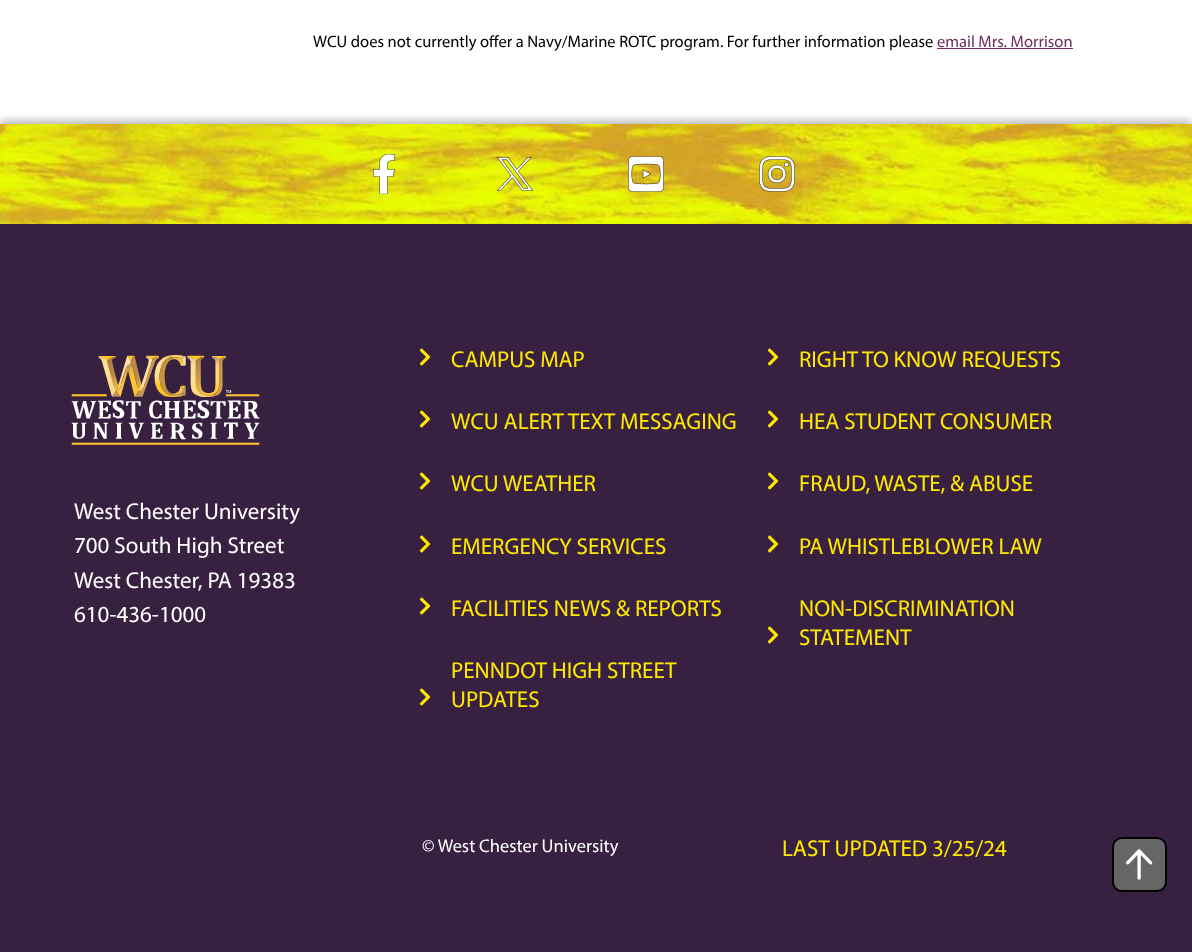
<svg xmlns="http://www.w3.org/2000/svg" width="1192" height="952">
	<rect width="100%" height="100%" fill="#FFFFFF" />
	<text x="313" y="47" font-family="Myriad" font-size="16.55" fill="#000000">WCU does not currently offer a Navy/Marine ROTC program. For further information please</text>
	<text x="937" y="47" font-family="Myriad" font-size="16.55" fill="#6E3061">email Mrs. Morrison</text>
	<rect x="937" y="48" width="136" height="1" fill="#6E3061" />
	<rect x="0" y="121" width="1192" height="828" fill="#000000" fill-opacity="0.3" filter="blur(4px)" />
	<rect x="0" y="224" width="1192" height="728" fill="#382140" />
	<image x="0" y="124" width="1192" height="100" href="assets/img1.png" />
	<image x="373" y="154" width="22" height="40" href="assets/img2.png" />
	<image x="496" y="157" width="37" height="34" href="assets/img3.png" />
	<image x="628" y="156" width="36" height="36" href="assets/img4.png" />
	<image x="759" y="156" width="36" height="36" href="assets/img5.png" />
	<image x="71" y="355" width="189" height="90" href="assets/img6.png" />
	<g font-family="Myriad" font-size="23" fill="#FFFFFF">
		<text x="74" y="519">West Chester University</text>
		<text x="74" y="553">700 South High Street</text>
		<text x="74" y="588">West Chester, PA 19383</text>
		<text x="74" y="622">610-436-1000</text>
	</g>
	<image x="419" y="348" width="12" height="18" href="assets/img7.png" />
	<text x="451" y="367" font-family="Myriad" font-size="23" fill="#FFE800">CAMPUS MAP</text>
	<image x="419" y="410" width="12" height="18" href="assets/img7.png" />
	<text x="451" y="429" font-family="Myriad" font-size="23" fill="#FFE800">WCU ALERT TEXT MESSAGING</text>
	<image x="419" y="472" width="12" height="18" href="assets/img7.png" />
	<text x="451" y="491" font-family="Myriad" font-size="23" fill="#FFE800">WCU WEATHER</text>
	<image x="419" y="535" width="12" height="18" href="assets/img7.png" />
	<text x="451" y="554" font-family="Myriad" font-size="23" fill="#FFE800">EMERGENCY SERVICES</text>
	<image x="419" y="597" width="12" height="18" href="assets/img7.png" />
	<text x="451" y="616" font-family="Myriad" font-size="23" fill="#FFE800">FACILITIES NEWS &amp; REPORTS</text>
	<image x="419" y="688" width="12" height="18" href="assets/img7.png" />
	<g font-family="Myriad" font-size="23" fill="#FFE800">
		<text x="451" y="678">PENNDOT HIGH STREET</text>
		<text x="451" y="707">UPDATES</text>
	</g>
	<image x="767" y="348" width="12" height="18" href="assets/img7.png" />
	<text x="799" y="367" font-family="Myriad" font-size="23" fill="#FFE800">RIGHT TO KNOW REQUESTS</text>
	<image x="767" y="410" width="12" height="18" href="assets/img7.png" />
	<text x="799" y="429" font-family="Myriad" font-size="23" fill="#FFE800">HEA STUDENT CONSUMER</text>
	<image x="767" y="472" width="12" height="18" href="assets/img7.png" />
	<text x="799" y="491" font-family="Myriad" font-size="23" fill="#FFE800">FRAUD, WASTE, &amp; ABUSE</text>
	<image x="767" y="535" width="12" height="18" href="assets/img7.png" />
	<text x="799" y="554" font-family="Myriad" font-size="23" fill="#FFE800">PA WHISTLEBLOWER LAW</text>
	<image x="767" y="626" width="12" height="18" href="assets/img7.png" />
	<g font-family="Myriad" font-size="23" fill="#FFE800">
		<text x="799" y="616">NON-DISCRIMINATION</text>
		<text x="799" y="645">STATEMENT</text>
	</g>
	<text x="422" y="852" font-family="Myriad" font-size="18.4" fill="#FFFFFF">© West Chester University</text>
	<text x="782" y="856" font-family="Myriad" font-size="23" fill="#FFE800">LAST UPDATED 3/25/24</text>
	<rect x="1113" y="838" width="53" height="53" rx="9" fill="#666666" stroke="#000000" stroke-width="2" />
	<image x="1126" y="849" width="27" height="31" href="assets/img8.png" />
</svg>
